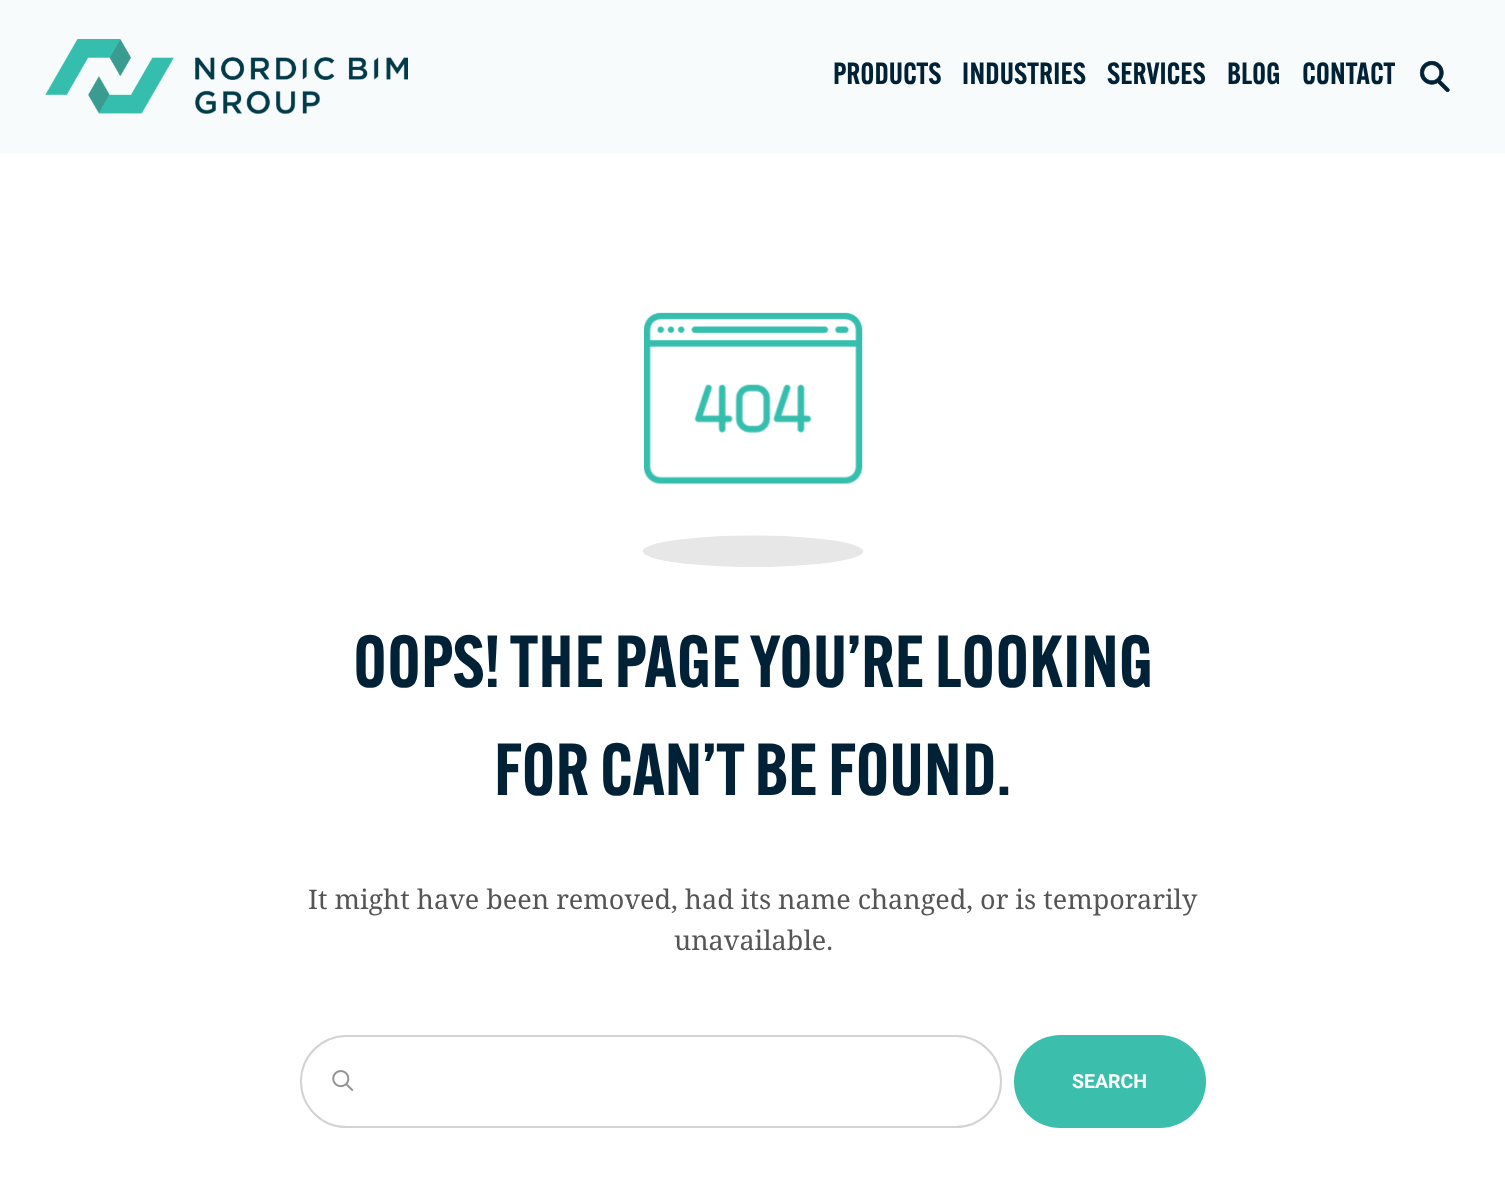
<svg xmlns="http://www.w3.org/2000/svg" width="1505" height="1185">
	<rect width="100%" height="100%" fill="#FFFFFF" />
	<rect x="0" y="0" width="1505" height="153" fill="#F7FBFB" />
	<image x="45" y="39" width="363" height="75" href="assets/img1.png" />
	<g font-family="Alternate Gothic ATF" font-size="30" font-weight="600" fill="#002136">
		<text x="833" y="84">PRODUCTS</text>
		<text x="962" y="84">INDUSTRIES</text>
		<text x="1107" y="84">SERVICES</text>
		<text x="1227" y="84">BLOG</text>
		<text x="1302" y="84">CONTACT</text>
	</g>
	<image x="1419" y="60" width="31" height="33" href="assets/img2.png" />
	<image x="642" y="312" width="222" height="255" href="assets/img3.png" />
	<g font-family="Alternate Gothic ATF" font-size="72" font-weight="600" fill="#002136">
		<text x="353" y="687">OOPS! THE PAGE YOU’RE LOOKING</text>
		<text x="494" y="795">FOR CAN’T BE FOUND.</text>
	</g>
	<g font-family="Noto Serif" font-size="27" fill="#555555">
		<text x="308" y="909">It might have been removed, had its name changed, or is temporarily</text>
		<text x="674" y="950">unavailable.</text>
	</g>
	<image x="332" y="1070" width="22" height="21" href="assets/img4.png" />
	<rect x="301" y="1036" width="700" height="91" rx="45.5" fill="none" stroke="#D3D3D3" stroke-width="2" />
	<rect x="1014" y="1035" width="192" height="93" rx="46.5" fill="#3BBFAC" />
	<text x="1072" y="1088" font-family="Roboto" font-size="19.5" font-weight="700" fill="#FFFFFF">SEARCH</text>
</svg>
